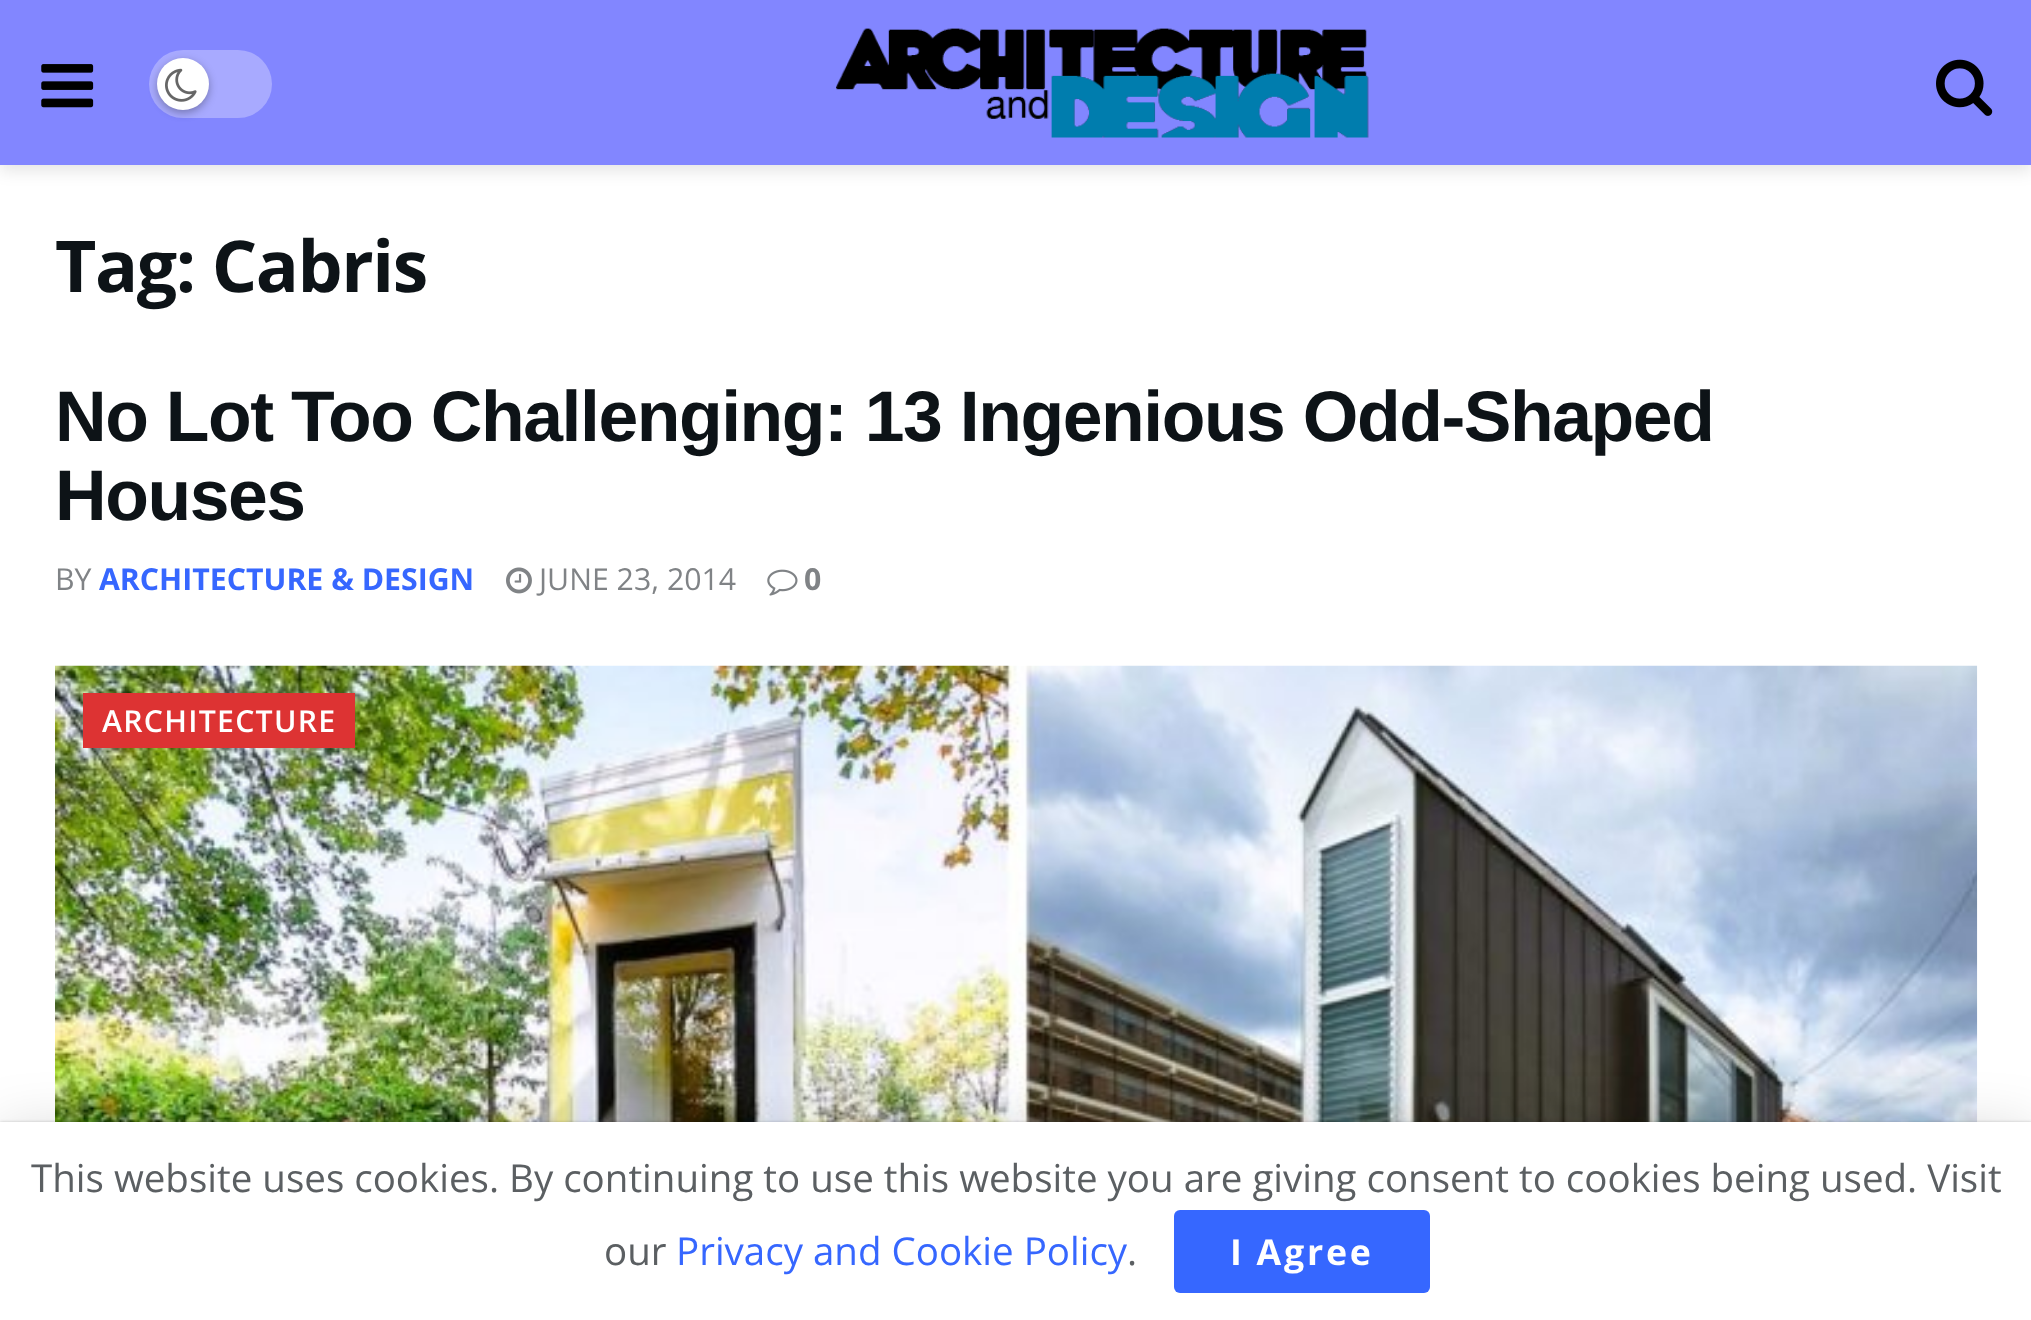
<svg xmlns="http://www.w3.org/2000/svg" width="2031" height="1320">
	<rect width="100%" height="100%" fill="#FFFFFF" />
	<rect x="0" y="6" width="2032" height="165" fill="#000000" fill-opacity="0.1" filter="blur(8px)" />
	<rect x="0" y="0" width="2031" height="165" fill="#8286FF" />
	<image x="41" y="64" width="53" height="44" href="assets/img1.png" />
	<rect x="149" y="50" width="123" height="68" rx="34" fill="#A8AAFF" />
	<rect x="157" y="61" width="52" height="52" rx="26" fill="#000000" fill-opacity="0.3" filter="blur(4px)" />
	<circle cx="183" cy="84" r="26" fill="#FFFFFF" />
	<image x="165" y="68" width="32" height="34" href="assets/img2.png" />
	<image x="836" y="28" width="533" height="110" href="assets/img3.png" />
	<image x="1936" y="59" width="57" height="57" href="assets/img4.png" />
	<text x="55" y="292" font-family="Open Sans" font-size="71.5" font-weight="700" letter-spacing="-1.45" fill="#0D1317">Tag: Cabris</text>
	<g font-family="Liberation Sans" font-size="71.5" font-weight="700" letter-spacing="-1.45" fill="#0D1317">
		<text x="55" y="441">No Lot Too Challenging: 13 Ingenious Odd-Shaped</text>
		<text x="55" y="520">Houses</text>
	</g>
	<text x="55" y="590" font-family="Open Sans" font-size="30.25" fill="#808386">BY</text>
	<text x="99" y="590" font-family="Open Sans" font-size="30.25" font-weight="700" fill="#3667FF">ARCHITECTURE &amp; DESIGN</text>
	<image x="506" y="567" width="26" height="27" href="assets/img5.png" />
	<text x="539" y="590" font-family="Open Sans" font-size="30.25" fill="#808386">JUNE 23, 2014</text>
	<image x="767" y="569" width="31" height="27" href="assets/img6.png" />
	<text x="804" y="590" font-family="Open Sans" font-size="30.25" font-weight="700" fill="#808386">0</text>
	<image x="55" y="665" width="1923" height="457" href="assets/img7.png" />
	<rect x="83" y="693" width="272" height="55" fill="#DD3333" />
	<text x="102" y="732" font-family="Open Sans" font-size="30.25" font-weight="600" letter-spacing="1.25" fill="#FFFFFF">ARCHITECTURE</text>
	<rect x="0" y="1128" width="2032" height="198" fill="#000000" fill-opacity="0.15" filter="blur(27.5px)" />
	<rect x="0" y="1122" width="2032" height="198" fill="#000000" fill-opacity="0.2" filter="blur(1.5px)" />
	<rect x="0" y="1122" width="2031" height="198" fill="#FFFFFF" />
	<g font-family="Open Sans" font-size="38.5" fill="#5B5F62">
		<text x="31" y="1192">This website uses cookies. By continuing to use this website you are giving consent to cookies being used. Visit</text>
		<text x="604" y="1265">our</text>
	</g>
	<text x="676" y="1265" font-family="Open Sans" font-size="38.5" fill="#3667FF">Privacy and Cookie Policy</text>
	<text x="1127" y="1265" font-family="Open Sans" font-size="38.5" fill="#5B5F62">.</text>
	<rect x="1174" y="1210" width="256" height="83" rx="6" fill="#3667FF" />
	<text x="1230" y="1265" font-family="Open Sans" font-size="35.75" font-weight="700" letter-spacing="2.75" fill="#FFFFFF">I Agree</text>
</svg>
